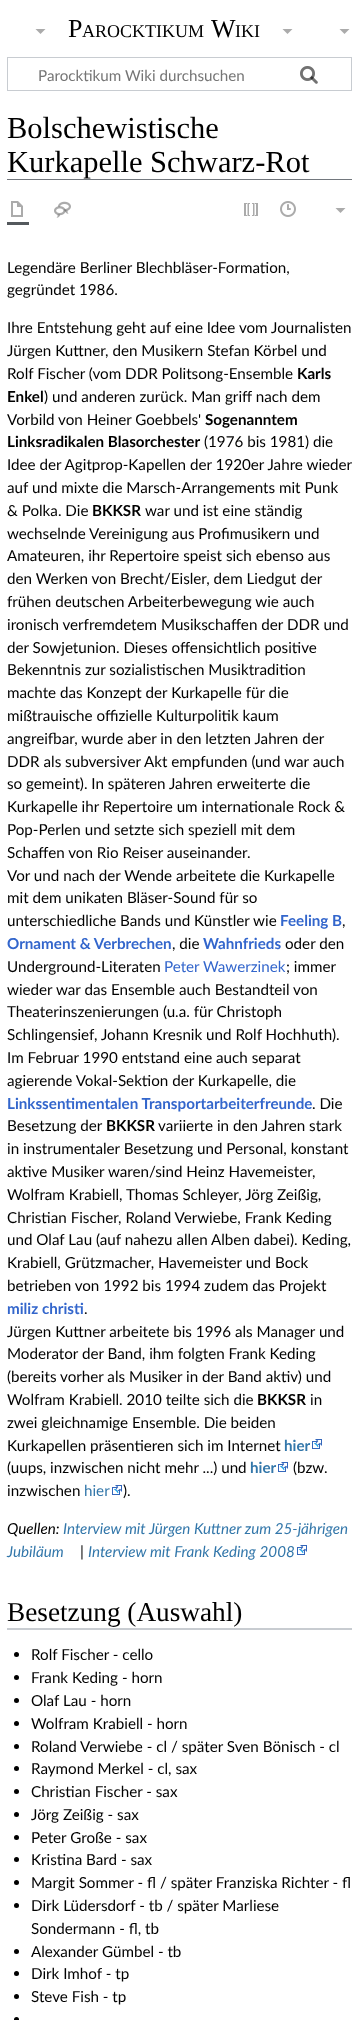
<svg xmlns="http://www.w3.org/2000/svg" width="359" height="2020">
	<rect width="100%" height="100%" fill="#FFFFFF" />
	<text x="68" y="37" font-family="Liberation Serif" font-size="26" fill="#000000">P</text>
	<text x="82" y="37" font-family="Liberation Serif" font-size="18" fill="#000000">AROCKTIKUM</text>
	<text x="211" y="37" font-family="Liberation Serif" font-size="26" fill="#000000">W</text>
	<text x="235" y="37" font-family="Liberation Serif" font-size="18" fill="#000000">IKI</text>
	<path d="M349.5 29L344.5 34L339.5 29Z" fill="#ABABAB" />
	<rect x="7.5" y="57.5" width="344" height="33" fill="none" stroke="#C8CCD1" />
	<image x="300" y="66" width="18" height="18" href="assets/img1.png" />
	<text x="38" y="81" font-family="Lato" font-size="15.2" fill="#757575">Parocktikum Wiki durchsuchen</text>
	<image x="300" y="66" width="18" height="18" href="assets/img2.png" />
	<path d="M45.5 29L40.5 34L35.5 29Z" fill="#ABABAB" />
	<path d="M292.5 29L287.5 34L282.5 29Z" fill="#ABABAB" />
	<rect x="7" y="179" width="345" height="1" fill="#72777D" />
	<g font-family="Liberation Serif" font-size="30.5" fill="#000000">
		<text x="7" y="138">Bolschewistische</text>
		<text x="7" y="172">Kurkapelle Schwarz-Rot</text>
	</g>
	<rect x="7" y="222" width="22" height="3" fill="#54595D" />
	<image x="11" y="201" width="12" height="16" href="assets/img3.png" />
	<image x="54" y="201" width="17" height="17" href="assets/img4.png" />
	<image x="244" y="203" width="14" height="13" href="assets/img5.png" />
	<image x="280" y="201" width="16" height="16" href="assets/img6.png" />
	<path d="M345.5 208L340.5 213L335.5 208Z" fill="#ABABAB" />
	<g font-family="Lato" font-size="15.2" fill="#000000">
		<text x="7" y="273">Legendäre Berliner Blechbläser-Formation,</text>
		<text x="7" y="295">gegründet 1986.</text>
		<text x="7" y="333">Ihre Entstehung geht auf eine Idee vom Journalisten</text>
		<text x="7" y="356">Jürgen Kuttner, den Musikern Stefan Körbel und</text>
		<text x="7" y="379">Rolf Fischer (vom DDR Politsong-Ensemble</text>
	</g>
	<g font-family="Lato" font-size="15.2" font-weight="700" fill="#000000">
		<text x="297" y="379">Karls</text>
		<text x="7" y="402">Enkel</text>
	</g>
	<g font-family="Lato" font-size="15.2" fill="#000000">
		<text x="44" y="402">) und anderen zurück. Man griff nach dem</text>
		<text x="7" y="425">Vorbild von Heiner Goebbels'</text>
	</g>
	<g font-family="Lato" font-size="15.2" font-weight="700" fill="#000000">
		<text x="205" y="425">Sogenanntem</text>
		<text x="7" y="447">Linksradikalen Blasorchester</text>
	</g>
	<g font-family="Lato" font-size="15.2" fill="#000000">
		<text x="204" y="447">(1976 bis 1981) die</text>
		<text x="7" y="470">Idee der Agitprop-Kapellen der 1920er Jahre wieder</text>
		<text x="7" y="493">auf und mixte die Marsch-Arrangements mit Punk</text>
		<text x="7" y="516">&amp; Polka. Die</text>
	</g>
	<text x="92" y="516" font-family="Lato" font-size="15.2" font-weight="700" fill="#000000">BKKSR</text>
	<g font-family="Lato" font-size="15.2" fill="#000000">
		<text x="145" y="516">war und ist eine ständig</text>
		<text x="7" y="539">wechselnde Vereinigung aus Profimusikern und</text>
		<text x="7" y="561">Amateuren, ihr Repertoire speist sich ebenso aus</text>
		<text x="7" y="584">den Werken von Brecht/Eisler, dem Liedgut der</text>
		<text x="7" y="607">frühen deutschen Arbeiterbewegung wie auch</text>
		<text x="7" y="630">ironisch verfremdetem Musikschaffen der DDR und</text>
		<text x="7" y="653">der Sowjetunion. Dieses offensichtlich positive</text>
		<text x="7" y="675">Bekenntnis zur sozialistischen Musiktradition</text>
		<text x="7" y="698">machte das Konzept der Kurkapelle für die</text>
		<text x="7" y="721">mißtrauische offizielle Kulturpolitik kaum</text>
		<text x="7" y="744">angreifbar, wurde aber in den letzten Jahren der</text>
		<text x="7" y="767">DDR als subversiver Akt empfunden (und war auch</text>
		<text x="7" y="789">so gemeint). In späteren Jahren erweiterte die</text>
		<text x="7" y="812">Kurkapelle ihr Repertoire um internationale Rock &amp;</text>
		<text x="7" y="835">Pop-Perlen und setzte sich speziell mit dem</text>
		<text x="7" y="858">Schaffen von Rio Reiser auseinander.</text>
		<text x="7" y="881">Vor und nach der Wende arbeitete die Kurkapelle</text>
		<text x="7" y="903">mit dem unikaten Bläser-Sound für so</text>
		<text x="7" y="926">unterschiedliche Bands und Künstler wie</text>
	</g>
	<text x="280" y="926" font-family="Lato" font-size="15.2" font-weight="700" fill="#3366CC">Feeling B</text>
	<text x="342" y="926" font-family="Lato" font-size="15.2" fill="#000000">,</text>
	<text x="7" y="949" font-family="Lato" font-size="15.2" font-weight="700" fill="#3366CC">Ornament &amp; Verbrechen</text>
	<text x="172" y="949" font-family="Lato" font-size="15.2" fill="#000000">, die</text>
	<text x="203" y="949" font-family="Lato" font-size="15.2" font-weight="700" fill="#3366CC">Wahnfrieds</text>
	<g font-family="Lato" font-size="15.2" fill="#000000">
		<text x="285" y="949">oder den</text>
		<text x="7" y="972">Underground-Literaten</text>
	</g>
	<text x="164" y="972" font-family="Lato" font-size="15.2" fill="#3366CC">Peter Wawerzinek</text>
	<g font-family="Lato" font-size="15.2" fill="#000000">
		<text x="286" y="972">; immer</text>
		<text x="7" y="995">wieder war das Ensemble auch Bestandteil von</text>
		<text x="7" y="1017">Theaterinszenierungen (u.a. für Christoph</text>
		<text x="7" y="1040">Schlingensief, Johann Kresnik und Rolf Hochhuth).</text>
		<text x="7" y="1063">Im Februar 1990 entstand eine auch separat</text>
		<text x="7" y="1086">agierende Vokal-Sektion der Kurkapelle, die</text>
	</g>
	<text x="7" y="1109" font-family="Lato" font-size="15.2" font-weight="700" fill="#3366CC">Linkssentimentalen Transportarbeiterfreunde</text>
	<g font-family="Lato" font-size="15.2" fill="#000000">
		<text x="312" y="1109">. Die</text>
		<text x="7" y="1131">Besetzung der</text>
	</g>
	<text x="106" y="1131" font-family="Lato" font-size="15.2" font-weight="700" fill="#000000">BKKSR</text>
	<g font-family="Lato" font-size="15.2" fill="#000000">
		<text x="158" y="1131">variierte in den Jahren stark</text>
		<text x="7" y="1154">in instrumentaler Besetzung und Personal, konstant</text>
		<text x="7" y="1177">aktive Musiker waren/sind Heinz Havemeister,</text>
		<text x="7" y="1200">Wolfram Krabiell, Thomas Schleyer, Jörg Zeißig,</text>
		<text x="7" y="1223">Christian Fischer, Roland Verwiebe, Frank Keding</text>
		<text x="7" y="1245">und Olaf Lau (auf nahezu allen Alben dabei). Keding,</text>
		<text x="7" y="1268">Krabiell, Grützmacher, Havemeister und Bock</text>
		<text x="7" y="1291">betrieben von 1992 bis 1994 zudem das Projekt</text>
	</g>
	<text x="7" y="1314" font-family="Lato" font-size="15.2" font-weight="700" fill="#3366CC">miliz christi</text>
	<g font-family="Lato" font-size="15.2" fill="#000000">
		<text x="84" y="1314">.</text>
		<text x="7" y="1337">Jürgen Kuttner arbeitete bis 1996 als Manager und</text>
		<text x="7" y="1359">Moderator der Band, ihm folgten Frank Keding</text>
		<text x="7" y="1382">(bereits vorher als Musiker in der Band aktiv) und</text>
		<text x="7" y="1405">Wolfram Krabiell. 2010 teilte sich die</text>
	</g>
	<text x="257" y="1405" font-family="Lato" font-size="15.2" font-weight="700" fill="#000000">BKKSR</text>
	<g font-family="Lato" font-size="15.2" fill="#000000">
		<text x="310" y="1405">in</text>
		<text x="7" y="1428">zwei gleichnamige Ensemble. Die beiden</text>
		<text x="7" y="1451">Kurkapellen präsentieren sich im Internet</text>
	</g>
	<text x="284" y="1451" font-family="Lato" font-size="15.2" font-weight="700" fill="#3377AA">hier</text>
	<image x="312" y="1439" width="10" height="10" href="assets/img7.png" />
	<text x="7" y="1473" font-family="Lato" font-size="15.2" fill="#000000">(uups, inzwischen nicht mehr ...) und</text>
	<text x="250" y="1473" font-family="Lato" font-size="15.2" font-weight="700" fill="#3377AA">hier</text>
	<image x="278" y="1462" width="10" height="10" href="assets/img7.png" />
	<g font-family="Lato" font-size="15.2" fill="#000000">
		<text x="293" y="1473">(bzw.</text>
		<text x="7" y="1496">inzwischen</text>
	</g>
	<text x="84" y="1496" font-family="Lato" font-size="15.2" fill="#3377AA">hier</text>
	<image x="112" y="1485" width="10" height="10" href="assets/img7.png" />
	<text x="123" y="1496" font-family="Lato" font-size="15.2" fill="#000000">).</text>
	<text x="7" y="1534" font-family="Lato" font-size="15.2" font-style="italic" fill="#000000">Quellen:</text>
	<g font-family="Lato" font-size="15.2" font-style="italic" fill="#3377AA">
		<text x="63" y="1534">Interview mit Jürgen Kuttner zum 25-jährigen</text>
		<text x="7" y="1557">Jubiläum</text>
	</g>
	<text x="80" y="1557" font-family="Lato" font-size="15.2" font-style="italic" fill="#000000">|</text>
	<text x="88" y="1557" font-family="Lato" font-size="15.2" font-style="italic" fill="#3377AA">Interview mit Frank Keding 2008</text>
	<image x="297" y="1545" width="10" height="10" href="assets/img7.png" />
	<text x="7" y="1621" font-family="Liberation Serif" font-size="27.25" fill="#000000">Besetzung (Auswahl)</text>
	<rect x="7" y="1628" width="345" height="2" fill="#C8CCD1" />
	<circle cx="16.5" cy="1654.5" r="2.5" fill="#000000" />
	<text x="31" y="1660" font-family="Lato" font-size="15.2" fill="#000000">Rolf Fischer - cello</text>
	<circle cx="16.5" cy="1677.5" r="2.5" fill="#000000" />
	<text x="31" y="1683" font-family="Lato" font-size="15.2" fill="#000000">Frank Keding - horn</text>
	<circle cx="16.5" cy="1700.5" r="2.5" fill="#000000" />
	<text x="31" y="1706" font-family="Lato" font-size="15.2" fill="#000000">Olaf Lau - horn</text>
	<circle cx="16.5" cy="1723.5" r="2.5" fill="#000000" />
	<text x="31" y="1729" font-family="Lato" font-size="15.2" fill="#000000">Wolfram Krabiell - horn</text>
	<circle cx="16.5" cy="1746.5" r="2.5" fill="#000000" />
	<text x="31" y="1752" font-family="Lato" font-size="15.2" fill="#000000">Roland Verwiebe - cl / später Sven Bönisch - cl</text>
	<circle cx="16.5" cy="1768.5" r="2.5" fill="#000000" />
	<text x="31" y="1774" font-family="Lato" font-size="15.2" fill="#000000">Raymond Merkel - cl, sax</text>
	<circle cx="16.5" cy="1791.5" r="2.5" fill="#000000" />
	<text x="31" y="1797" font-family="Lato" font-size="15.2" fill="#000000">Christian Fischer - sax</text>
	<circle cx="16.5" cy="1814.5" r="2.5" fill="#000000" />
	<text x="31" y="1820" font-family="Lato" font-size="15.2" fill="#000000">Jörg Zeißig - sax</text>
	<circle cx="16.5" cy="1837.5" r="2.5" fill="#000000" />
	<text x="31" y="1843" font-family="Lato" font-size="15.2" fill="#000000">Peter Große - sax</text>
	<circle cx="16.5" cy="1859.5" r="2.5" fill="#000000" />
	<text x="31" y="1865" font-family="Lato" font-size="15.2" fill="#000000">Kristina Bard - sax</text>
	<circle cx="16.5" cy="1882.5" r="2.5" fill="#000000" />
	<text x="31" y="1888" font-family="Lato" font-size="15.2" fill="#000000">Margit Sommer - fl / später Franziska Richter - fl</text>
	<circle cx="16.5" cy="1905.5" r="2.5" fill="#000000" />
	<g font-family="Lato" font-size="15.2" fill="#000000">
		<text x="31" y="1911">Dirk Lüdersdorf - tb / später Marliese</text>
		<text x="31" y="1934">Sondermann - fl, tb</text>
	</g>
	<circle cx="16.5" cy="1951.5" r="2.5" fill="#000000" />
	<text x="31" y="1957" font-family="Lato" font-size="15.2" fill="#000000">Alexander Gümbel - tb</text>
	<circle cx="16.5" cy="1973.5" r="2.5" fill="#000000" />
	<text x="31" y="1979" font-family="Lato" font-size="15.2" fill="#000000">Dirk Imhof - tp</text>
	<circle cx="16.5" cy="1996.5" r="2.5" fill="#000000" />
	<text x="31" y="2002" font-family="Lato" font-size="15.2" fill="#000000">Steve Fish - tp</text>
	<circle cx="16.5" cy="2019.5" r="2.5" fill="#000000" />
</svg>
